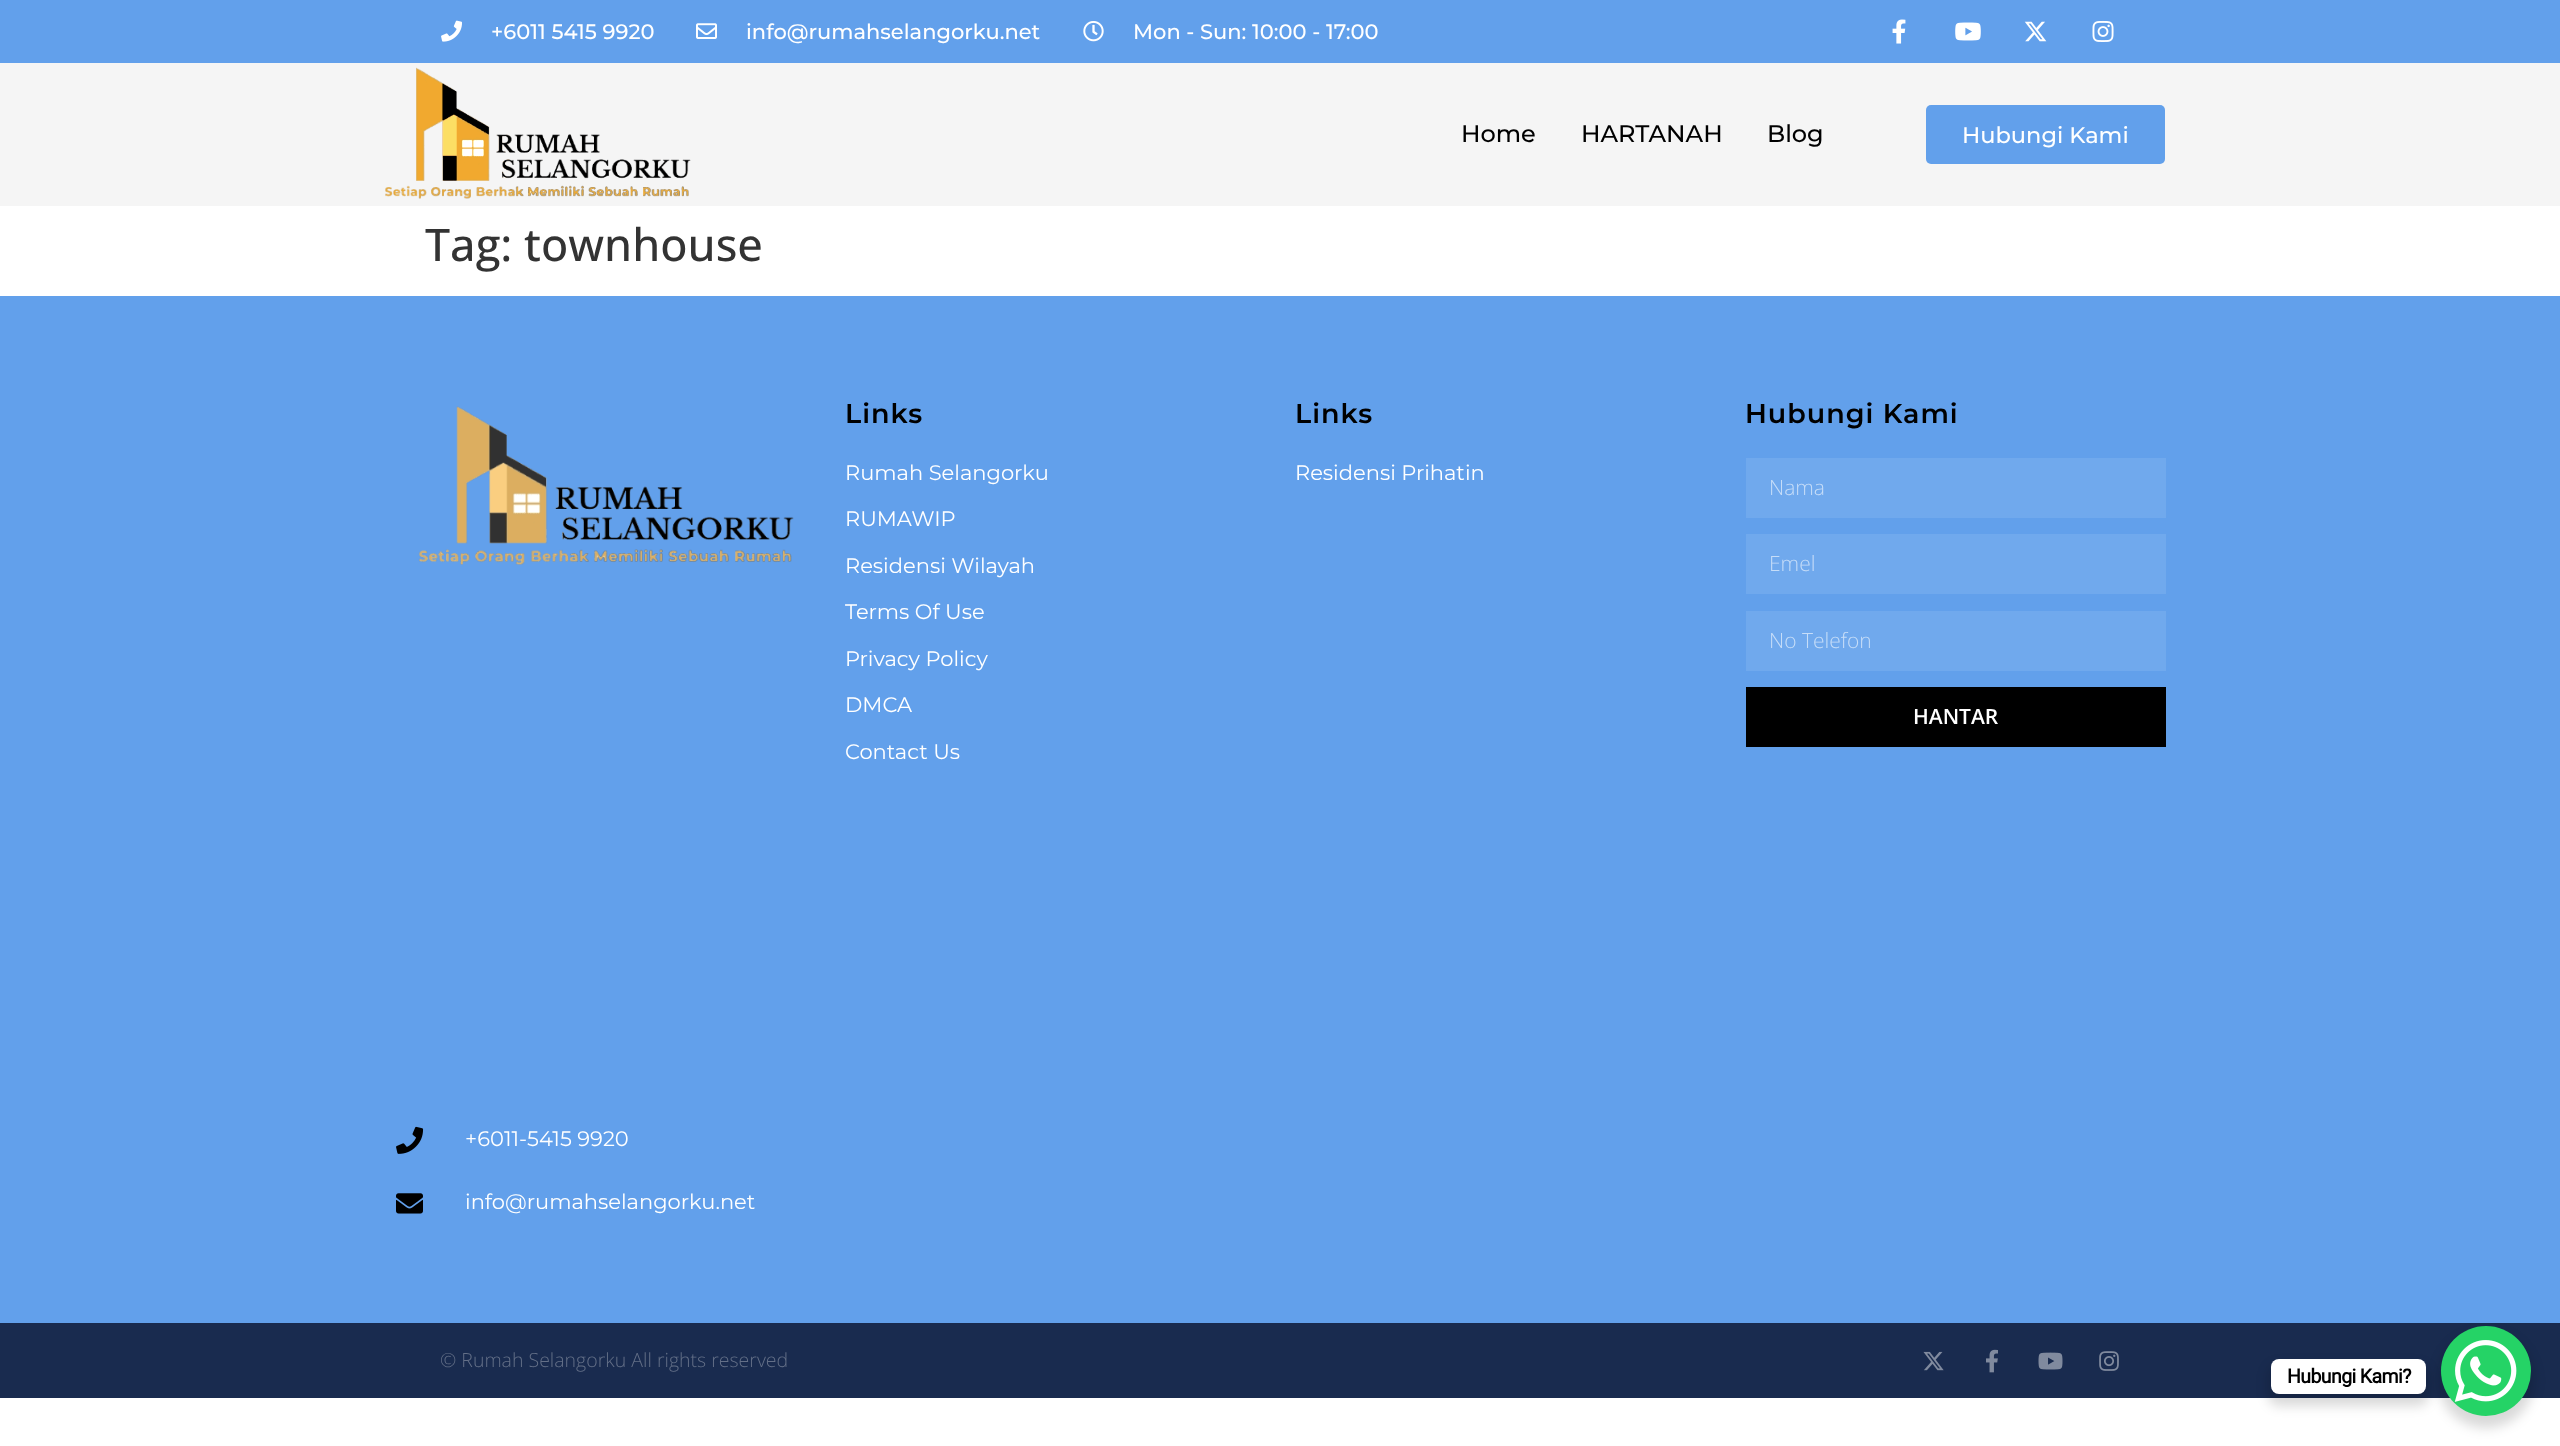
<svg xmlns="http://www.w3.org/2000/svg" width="2560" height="1446">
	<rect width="100%" height="100%" fill="#FFFFFF" />
	<rect x="0" y="0" width="2560" height="63" fill="#62A0EB" />
	<image x="441" y="20" width="21" height="22" href="assets/img1.png" />
	<text x="491" y="39" font-family="Montserrat" font-size="21" font-weight="500" fill="#FFFFFF">+6011 5415 9920</text>
	<image x="696" y="23" width="21" height="16" href="assets/img2.png" />
	<text x="746" y="39" font-family="Montserrat" font-size="21" font-weight="500" fill="#FFFFFF">info@rumahselangorku.net</text>
	<image x="1083" y="21" width="21" height="21" href="assets/img3.png" />
	<text x="1133" y="39" font-family="Montserrat" font-size="21" font-weight="500" fill="#FFFFFF">Mon - Sun: 10:00 - 17:00</text>
	<image x="1892" y="19" width="14" height="25" href="assets/img4.png" />
	<image x="1955" y="22" width="26" height="19" href="assets/img5.png" />
	<image x="2024" y="21" width="23" height="21" href="assets/img6.png" />
	<image x="2092" y="20" width="22" height="22" href="assets/img7.png" />
	<rect x="0" y="63" width="2560" height="143" fill="#F5F5F5" />
	<image x="385" y="67" width="306" height="132" href="assets/img8.png" />
	<g font-family="Montserrat" font-size="24" font-weight="500" fill="#000000">
		<text x="1461" y="142">Home</text>
		<text x="1581" y="142">HARTANAH</text>
		<text x="1767" y="142">Blog</text>
	</g>
	<rect x="1926" y="105" width="239" height="59" rx="5" fill="#62A0EB" />
	<text x="1962" y="143" font-family="Montserrat" font-size="22.5" font-weight="500" fill="#FFFFFF">Hubungi Kami</text>
	<text x="425" y="261" font-family="Open Sans" font-size="45" font-weight="500" fill="#333333">Tag: townhouse</text>
	<rect x="0" y="296" width="2560" height="1027" fill="#62A0EB" />
	<text x="845" y="423" font-family="Montserrat" font-size="27" font-weight="600" letter-spacing="1" fill="#000000">Links</text>
	<g font-family="Montserrat" font-size="21" font-weight="100" fill="#FFFFFF">
		<text x="845" y="480">Rumah Selangorku</text>
		<text x="845" y="526">RUMAWIP</text>
		<text x="845" y="573">Residensi Wilayah</text>
		<text x="845" y="619">Terms Of Use</text>
		<text x="845" y="666">Privacy Policy</text>
		<text x="845" y="712">DMCA</text>
		<text x="845" y="759">Contact Us</text>
	</g>
	<text x="1295" y="423" font-family="Montserrat" font-size="27" font-weight="600" letter-spacing="1" fill="#000000">Links</text>
	<text x="1295" y="480" font-family="Montserrat" font-size="21" font-weight="100" fill="#FFFFFF">Residensi Prihatin</text>
	<text x="1745" y="423" font-family="Montserrat" font-size="27" font-weight="600" letter-spacing="1" fill="#000000">Hubungi Kami</text>
	<rect x="1746" y="458" width="420" height="60" fill="#70A9ED" />
	<text x="1769" y="495" font-family="Open Sans" font-size="21" font-weight="300" fill="#C6DDF8">Nama</text>
	<rect x="1746" y="534" width="420" height="60" fill="#70A9ED" />
	<text x="1769" y="571" font-family="Open Sans" font-size="21" font-weight="300" fill="#C6DDF8">Emel</text>
	<rect x="1746" y="611" width="420" height="60" fill="#70A9ED" />
	<text x="1769" y="648" font-family="Open Sans" font-size="21" font-weight="300" fill="#C6DDF8">No Telefon</text>
	<rect x="1746" y="687" width="420" height="60" fill="#000000" />
	<text x="1913" y="724" font-family="Open Sans" font-size="21" font-weight="600" fill="#FFFFFF">HANTAR</text>
	<image x="418" y="406" width="376" height="159" href="assets/img9.png" />
	<image x="396" y="1126" width="28" height="28" href="assets/img10.png" />
	<text x="465" y="1146" font-family="Montserrat" font-size="21" font-weight="100" fill="#FFFFFF">+6011-5415 9920</text>
	<image x="396" y="1193" width="27" height="21" href="assets/img11.png" />
	<text x="465" y="1209" font-family="Montserrat" font-size="21" font-weight="100" fill="#FFFFFF">info@rumahselangorku.net</text>
	<rect x="0" y="1323" width="2560" height="75" fill="#192B4F" />
	<text x="440" y="1367" font-family="Open Sans" font-size="19.5" font-weight="300" fill="#636F87">© Rumah Selangorku All rights reserved</text>
	<image x="1923" y="1351" width="21" height="20" href="assets/img12.png" />
	<image x="1986" y="1349" width="12" height="24" href="assets/img13.png" />
	<image x="2038" y="1352" width="25" height="18" href="assets/img14.png" />
	<image x="2099" y="1351" width="20" height="20" href="assets/img15.png" />
	<rect x="2438" y="1332" width="96" height="96" rx="48" fill="#000000" fill-opacity="0.15" filter="blur(6px)" />
	<circle cx="2486" cy="1371" r="45" fill="#25D366" />
	<rect x="2268" y="1365" width="161" height="41" rx="11" fill="#000000" fill-opacity="0.15" filter="blur(6px)" />
	<rect x="2271" y="1359" width="155" height="35" rx="8" fill="#FFFFFF" />
	<text x="2287" y="1383" font-family="Roboto" font-size="19.5" font-weight="700" letter-spacing="-0.6" fill="#000000">Hubungi Kami?</text>
	<image x="2454" y="1340" width="63" height="62" href="assets/img16.png" />
</svg>
